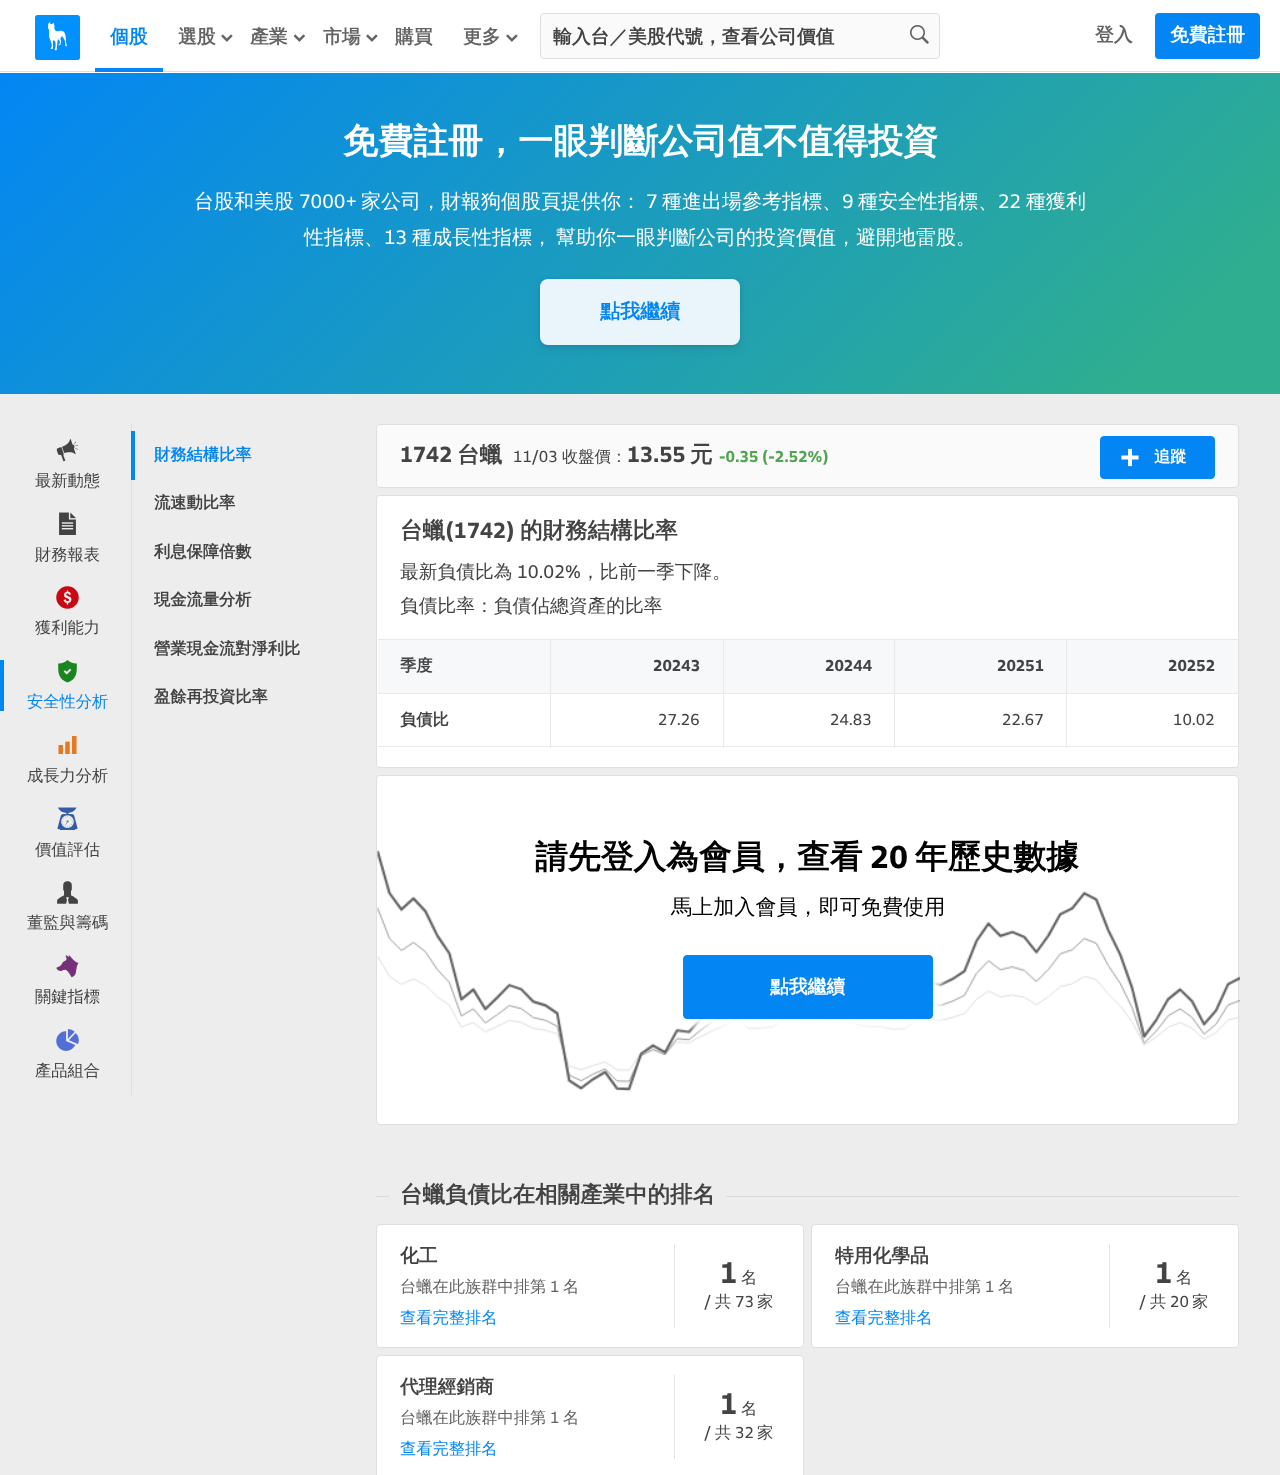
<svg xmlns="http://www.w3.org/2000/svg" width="1280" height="1475">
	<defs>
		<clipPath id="clip1"><rect x="553" y="25" width="375" height="24" /></clipPath>
		<linearGradient id="g1" gradientUnits="userSpaceOnUse" x1="251" y1="-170" x2="1029" y2="636"><stop offset="0" stop-color="#0386F4" /><stop offset="0.9" stop-color="#2FAE90" /></linearGradient>
		<clipPath id="clip2"><rect x="400" y="444" width="103" height="24" /></clipPath>
	</defs>
	<rect width="100%" height="100%" fill="#EDEDED" />
	<rect x="0" y="0" width="1280" height="73" fill="#FFFFFF" />
	<rect x="0" y="71" width="1280" height="1" fill="#DFDFDF" />
	<image x="35" y="15" width="45" height="45" href="assets/img1.png" />
	<rect x="95" y="68" width="68" height="4" fill="#0386F4" />
	<text x="110" y="43" font-family="WenQuanYi Zen Hei" font-size="18.75" font-weight="700" fill="#0386F4">個股</text>
	<text x="178" y="43" font-family="WenQuanYi Zen Hei" font-size="18.75" font-weight="700" fill="#636363">選股</text>
	<image x="221" y="34" width="12" height="8" href="assets/img2.png" />
	<text x="250" y="43" font-family="WenQuanYi Zen Hei" font-size="18.75" font-weight="700" fill="#636363">產業</text>
	<image x="293" y="34" width="13" height="8" href="assets/img3.png" />
	<text x="323" y="43" font-family="WenQuanYi Zen Hei" font-size="18.75" font-weight="700" fill="#636363">市場</text>
	<image x="366" y="34" width="12" height="8" href="assets/img2.png" />
	<g font-family="WenQuanYi Zen Hei" font-size="18.75" font-weight="700" fill="#636363">
		<text x="395" y="43">購買</text>
		<text x="463" y="43">更多</text>
	</g>
	<image x="506" y="34" width="12" height="8" href="assets/img2.png" />
	<rect x="540.5" y="13.5" width="399" height="45" rx="3.5" fill="#FAFAFA" stroke="#DFDFDF" />
	<g clip-path="url(#clip1)">
		<text x="553" y="43" font-family="WenQuanYi Zen Hei" font-size="18.75" font-weight="700" fill="#434343">輸入台／美股代號，查看公司價值</text>
	</g>
	<image x="910" y="25" width="19" height="19" href="assets/img4.png" />
	<text x="1095" y="41" font-family="WenQuanYi Zen Hei" font-size="18.75" font-weight="700" fill="#636363">登入</text>
	<rect x="1155" y="13" width="105" height="46" rx="4" fill="#0386F4" />
	<text x="1170" y="41" font-family="WenQuanYi Zen Hei" font-size="18.75" font-weight="700" fill="#FFFFFF">免費註冊</text>
	<rect x="0" y="73" width="1280" height="321" fill="url(#g1)" />
	<text x="343" y="153" font-family="WenQuanYi Zen Hei" font-size="35" font-weight="700" fill="#FFFFFF">免費註冊，一眼判斷公司值不值得投資</text>
	<text x="194" y="208" font-family="WenQuanYi Zen Hei" font-size="20" font-weight="500" fill="#FFFFFF">台股和美股</text>
	<text x="299" y="208" font-family="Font" font-size="20" fill="#FFFFFF">7000+</text>
	<text x="361" y="208" font-family="WenQuanYi Zen Hei" font-size="20" font-weight="500" fill="#FFFFFF">家公司，財報狗個股頁提供你：</text>
	<text x="646" y="208" font-family="Font" font-size="20" fill="#FFFFFF">7</text>
	<text x="662" y="208" font-family="WenQuanYi Zen Hei" font-size="20" font-weight="500" fill="#FFFFFF">種進出場參考指標、</text>
	<text x="842" y="208" font-family="Font" font-size="20" fill="#FFFFFF">9</text>
	<text x="858" y="208" font-family="WenQuanYi Zen Hei" font-size="20" font-weight="500" fill="#FFFFFF">種安全性指標、</text>
	<text x="998" y="208" font-family="Font" font-size="20" fill="#FFFFFF">22</text>
	<g font-family="WenQuanYi Zen Hei" font-size="20" font-weight="500" fill="#FFFFFF">
		<text x="1026" y="208">種獲利</text>
		<text x="304" y="244">性指標、</text>
	</g>
	<text x="384" y="244" font-family="Font" font-size="20" fill="#FFFFFF">13</text>
	<g font-family="WenQuanYi Zen Hei" font-size="20" font-weight="500" fill="#FFFFFF">
		<text x="412" y="244">種成長性指標，</text>
		<text x="556" y="244">幫助你一眼判斷公司的投資價值，避開地雷股。</text>
	</g>
	<rect x="540" y="280" width="200" height="66" rx="8" fill="#000000" fill-opacity="0.08" filter="blur(2px)" />
	<rect x="540" y="284" width="200" height="66" rx="8" fill="#32325D" fill-opacity="0.11" filter="blur(4px)" />
	<rect x="540" y="279" width="200" height="66" rx="8" fill="#EAF5FB" />
	<text x="600" y="318" font-family="WenQuanYi Zen Hei" font-size="20" font-weight="700" fill="#0386F4">點我繼續</text>
	<image x="56" y="438" width="23" height="24" href="assets/img5.png" />
	<text x="35" y="486" font-family="WenQuanYi Zen Hei" font-size="16.25" font-weight="500" fill="#434343">最新動態</text>
	<image x="59" y="512" width="17" height="23" href="assets/img6.png" />
	<text x="35" y="560" font-family="WenQuanYi Zen Hei" font-size="16.25" font-weight="500" fill="#434343">財務報表</text>
	<image x="56" y="586" width="23" height="23" href="assets/img7.png" />
	<text x="35" y="633" font-family="WenQuanYi Zen Hei" font-size="16.25" font-weight="500" fill="#434343">獲利能力</text>
	<rect x="0" y="660" width="4" height="51" fill="#0386F4" />
	<image x="58" y="660" width="19" height="23" href="assets/img8.png" />
	<text x="27" y="707" font-family="WenQuanYi Zen Hei" font-size="16.25" font-weight="500" fill="#0386F4">安全性分析</text>
	<image x="58" y="736" width="19" height="18" href="assets/img9.png" />
	<text x="27" y="781" font-family="WenQuanYi Zen Hei" font-size="16.25" font-weight="500" fill="#434343">成長力分析</text>
	<image x="57" y="807" width="21" height="23" href="assets/img10.png" />
	<text x="35" y="855" font-family="WenQuanYi Zen Hei" font-size="16.25" font-weight="500" fill="#434343">價值評估</text>
	<image x="57" y="881" width="21" height="23" href="assets/img11.png" />
	<text x="27" y="928" font-family="WenQuanYi Zen Hei" font-size="16.25" font-weight="500" fill="#434343">董監與籌碼</text>
	<image x="56" y="955" width="23" height="23" href="assets/img12.png" />
	<text x="35" y="1002" font-family="WenQuanYi Zen Hei" font-size="16.25" font-weight="500" fill="#434343">關鍵指標</text>
	<image x="56" y="1029" width="23" height="22" href="assets/img13.png" />
	<text x="35" y="1076" font-family="WenQuanYi Zen Hei" font-size="16.25" font-weight="500" fill="#434343">產品組合</text>
	<rect x="131" y="424" width="1" height="671" fill="#DFDFDF" />
	<rect x="131" y="431" width="4" height="49" fill="#0386F4" />
	<text x="154" y="460" font-family="WenQuanYi Zen Hei" font-size="16.25" font-weight="700" fill="#0386F4">財務結構比率</text>
	<g font-family="WenQuanYi Zen Hei" font-size="16.25" font-weight="700" fill="#434343">
		<text x="154" y="508">流速動比率</text>
		<text x="154" y="557">利息保障倍數</text>
		<text x="154" y="605">現金流量分析</text>
		<text x="154" y="654">營業現金流對淨利比</text>
		<text x="154" y="702">盈餘再投資比率</text>
	</g>
	<rect x="376.5" y="424.5" width="862" height="63" rx="3.5" fill="#FAFAFA" stroke="#DFDFDF" />
	<text x="400" y="462" font-family="Font" font-size="22.5" font-weight="700" fill="#434343">1742</text>
	<g clip-path="url(#clip2)">
		<text x="457" y="462" font-family="WenQuanYi Zen Hei" font-size="22.5" font-weight="700" fill="#434343">台蠟</text>
	</g>
	<text x="513" y="462" font-family="Font" font-size="16.25" fill="#434343">11/03</text>
	<text x="562" y="462" font-family="WenQuanYi Zen Hei" font-size="16.25" font-weight="500" fill="#434343">收盤價：</text>
	<text x="627" y="462" font-family="Font" font-size="22.5" font-weight="700" fill="#434343">13.55</text>
	<text x="690" y="462" font-family="WenQuanYi Zen Hei" font-size="22.5" font-weight="700" fill="#434343">元</text>
	<text x="719" y="462" font-family="Font" font-size="16.25" font-weight="700" fill="#51A551">-0.35 (-2.52%)</text>
	<rect x="1100.5" y="436.5" width="114" height="42" rx="3.5" fill="#0386F4" stroke="#0386F4" />
	<image x="1121" y="448" width="18" height="19" href="assets/img14.png" />
	<text x="1154" y="462" font-family="WenQuanYi Zen Hei" font-size="16.25" font-weight="700" fill="#FFFFFF">追蹤</text>
	<rect x="376.5" y="495.5" width="862" height="272" rx="3.5" fill="#FFFFFF" stroke="#DFDFDF" />
	<text x="400" y="538" font-family="WenQuanYi Zen Hei" font-size="22.5" font-weight="700" fill="#434343">台蠟</text>
	<text x="445" y="538" font-family="Font" font-size="22.5" font-weight="700" fill="#434343">(1742)</text>
	<text x="520" y="538" font-family="WenQuanYi Zen Hei" font-size="22.5" font-weight="700" fill="#434343">的財務結構比率</text>
	<text x="400" y="578" font-family="WenQuanYi Zen Hei" font-size="18.75" font-weight="500" fill="#434343">最新負債比為</text>
	<text x="517" y="578" font-family="Font" font-size="18.75" fill="#434343">10.02%</text>
	<g font-family="WenQuanYi Zen Hei" font-size="18.75" font-weight="500" fill="#434343">
		<text x="581" y="578">，比前一季下降。</text>
		<text x="400" y="612">負債比率：負債佔總資產的比率</text>
	</g>
	<rect x="378" y="640" width="860" height="53" fill="#F6F8FA" />
	<rect x="1066" y="639" width="173" height="1" fill="#E9E9E9" />
	<rect x="1066" y="693" width="173" height="1" fill="#E9E9E9" />
	<rect x="1066" y="746" width="173" height="1" fill="#E9E9E9" />
	<rect x="1066" y="693" width="1" height="55" fill="#E9E9E9" />
	<rect x="894" y="693" width="174" height="1" fill="#E9E9E9" />
	<rect x="1066" y="639" width="1" height="55" fill="#E9E9E9" />
	<rect x="894" y="639" width="174" height="1" fill="#E9E9E9" />
	<rect x="894" y="746" width="174" height="1" fill="#E9E9E9" />
	<rect x="894" y="693" width="1" height="55" fill="#E9E9E9" />
	<rect x="723" y="693" width="172" height="1" fill="#E9E9E9" />
	<rect x="894" y="639" width="1" height="55" fill="#E9E9E9" />
	<rect x="723" y="639" width="172" height="1" fill="#E9E9E9" />
	<rect x="723" y="746" width="172" height="1" fill="#E9E9E9" />
	<rect x="723" y="693" width="1" height="55" fill="#E9E9E9" />
	<rect x="550" y="693" width="174" height="1" fill="#E9E9E9" />
	<rect x="723" y="639" width="1" height="55" fill="#E9E9E9" />
	<rect x="550" y="639" width="174" height="1" fill="#E9E9E9" />
	<rect x="550" y="746" width="174" height="1" fill="#E9E9E9" />
	<rect x="550" y="693" width="1" height="55" fill="#E9E9E9" />
	<rect x="378" y="693" width="173" height="1" fill="#E9E9E9" />
	<rect x="550" y="639" width="1" height="55" fill="#E9E9E9" />
	<rect x="378" y="639" width="173" height="1" fill="#E9E9E9" />
	<text x="400" y="671" font-family="WenQuanYi Zen Hei" font-size="16.25" font-weight="700" fill="#434343">季度</text>
	<g font-family="Font" font-size="16.25" font-weight="700" fill="#434343">
		<text x="653" y="671">20243</text>
		<text x="825" y="671">20244</text>
		<text x="997" y="671">20251</text>
		<text x="1168" y="671">20252</text>
	</g>
	<rect x="378" y="746" width="173" height="1" fill="#E9E9E9" />
	<text x="400" y="725" font-family="WenQuanYi Zen Hei" font-size="16.25" font-weight="700" fill="#434343">負債比</text>
	<g font-family="Font" font-size="16.25" fill="#434343">
		<text x="658" y="725">27.26</text>
		<text x="830" y="725">24.83</text>
		<text x="1002" y="725">22.67</text>
		<text x="1173" y="725">10.02</text>
	</g>
	<rect x="376.5" y="775.5" width="862" height="349" rx="3.5" fill="#FFFFFF" stroke="#DFDFDF" />
	<image x="377" y="850" width="863" height="242" href="assets/img15.png" />
	<text x="535" y="868" font-family="WenQuanYi Zen Hei" font-size="32.75" font-weight="700" fill="#000000">請先登入為會員，查看</text>
	<text x="870" y="868" font-family="Font" font-size="32.75" font-weight="700" fill="#000000">20</text>
	<text x="915" y="868" font-family="WenQuanYi Zen Hei" font-size="32.75" font-weight="700" fill="#000000">年歷史數據</text>
	<text x="671" y="914" font-family="WenQuanYi Zen Hei" font-size="21.1" font-weight="500" fill="#000000">馬上加入會員，即可免費使用</text>
	<rect x="675" y="948" width="265" height="78" rx="11" fill="#FFFFFF" filter="blur(4px)" />
	<rect x="683.5" y="955.5" width="249" height="63" rx="3.5" fill="#0386F4" stroke="#0386F4" />
	<text x="770" y="993" font-family="WenQuanYi Zen Hei" font-size="18.75" font-weight="700" fill="#FFFFFF">點我繼續</text>
	<rect x="376" y="1196" width="863" height="1" fill="#D9D9D9" />
	<rect x="389" y="1196" width="337" height="1" fill="#EDEDED" />
	<text x="400" y="1202" font-family="WenQuanYi Zen Hei" font-size="22.5" font-weight="700" fill="#434343">台蠟負債比在相關產業中的排名</text>
	<rect x="376.5" y="1224.5" width="427" height="123" rx="3.5" fill="#FFFFFF" stroke="#DFDFDF" />
	<rect x="674" y="1244" width="1" height="84" fill="#E3E3E3" />
	<text x="400" y="1262" font-family="WenQuanYi Zen Hei" font-size="18.75" font-weight="700" fill="#434343">化工</text>
	<text x="400" y="1292" font-family="WenQuanYi Zen Hei" font-size="16.25" font-weight="500" fill="#636363">台蠟在此族群中排第</text>
	<text x="550" y="1292" font-family="Font" font-size="16.25" fill="#636363">1</text>
	<text x="563" y="1292" font-family="WenQuanYi Zen Hei" font-size="16.25" font-weight="500" fill="#636363">名</text>
	<text x="400" y="1323" font-family="WenQuanYi Zen Hei" font-size="16.25" font-weight="500" fill="#0386F4">查看完整排名</text>
	<text x="720" y="1283" font-family="Font" font-size="30" font-weight="700" fill="#434343">1</text>
	<text x="741" y="1283" font-family="WenQuanYi Zen Hei" font-size="16.25" font-weight="500" fill="#434343">名</text>
	<text x="704" y="1307" font-family="Font" font-size="16.25" fill="#434343">/</text>
	<text x="715" y="1307" font-family="WenQuanYi Zen Hei" font-size="16.25" font-weight="500" fill="#434343">共</text>
	<text x="735" y="1307" font-family="Font" font-size="16.25" fill="#434343">73</text>
	<text x="757" y="1307" font-family="WenQuanYi Zen Hei" font-size="16.25" font-weight="500" fill="#434343">家</text>
	<rect x="811.5" y="1224.5" width="427" height="123" rx="3.5" fill="#FFFFFF" stroke="#DFDFDF" />
	<rect x="1109" y="1244" width="1" height="84" fill="#E3E3E3" />
	<text x="835" y="1262" font-family="WenQuanYi Zen Hei" font-size="18.75" font-weight="700" fill="#434343">特用化學品</text>
	<text x="835" y="1292" font-family="WenQuanYi Zen Hei" font-size="16.25" font-weight="500" fill="#636363">台蠟在此族群中排第</text>
	<text x="985" y="1292" font-family="Font" font-size="16.25" fill="#636363">1</text>
	<text x="998" y="1292" font-family="WenQuanYi Zen Hei" font-size="16.25" font-weight="500" fill="#636363">名</text>
	<text x="835" y="1323" font-family="WenQuanYi Zen Hei" font-size="16.25" font-weight="500" fill="#0386F4">查看完整排名</text>
	<text x="1155" y="1283" font-family="Font" font-size="30" font-weight="700" fill="#434343">1</text>
	<text x="1176" y="1283" font-family="WenQuanYi Zen Hei" font-size="16.25" font-weight="500" fill="#434343">名</text>
	<text x="1139" y="1307" font-family="Font" font-size="16.25" fill="#434343">/</text>
	<text x="1150" y="1307" font-family="WenQuanYi Zen Hei" font-size="16.25" font-weight="500" fill="#434343">共</text>
	<text x="1170" y="1307" font-family="Font" font-size="16.25" fill="#434343">20</text>
	<text x="1192" y="1307" font-family="WenQuanYi Zen Hei" font-size="16.25" font-weight="500" fill="#434343">家</text>
	<rect x="376.5" y="1355.5" width="427" height="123" rx="3.5" fill="#FFFFFF" stroke="#DFDFDF" />
	<rect x="674" y="1375" width="1" height="84" fill="#E3E3E3" />
	<text x="400" y="1393" font-family="WenQuanYi Zen Hei" font-size="18.75" font-weight="700" fill="#434343">代理經銷商</text>
	<text x="400" y="1423" font-family="WenQuanYi Zen Hei" font-size="16.25" font-weight="500" fill="#636363">台蠟在此族群中排第</text>
	<text x="550" y="1423" font-family="Font" font-size="16.25" fill="#636363">1</text>
	<text x="563" y="1423" font-family="WenQuanYi Zen Hei" font-size="16.25" font-weight="500" fill="#636363">名</text>
	<text x="400" y="1454" font-family="WenQuanYi Zen Hei" font-size="16.25" font-weight="500" fill="#0386F4">查看完整排名</text>
	<text x="720" y="1414" font-family="Font" font-size="30" font-weight="700" fill="#434343">1</text>
	<text x="741" y="1414" font-family="WenQuanYi Zen Hei" font-size="16.25" font-weight="500" fill="#434343">名</text>
	<text x="704" y="1438" font-family="Font" font-size="16.25" fill="#434343">/</text>
	<text x="715" y="1438" font-family="WenQuanYi Zen Hei" font-size="16.25" font-weight="500" fill="#434343">共</text>
	<text x="735" y="1438" font-family="Font" font-size="16.25" fill="#434343">32</text>
	<text x="757" y="1438" font-family="WenQuanYi Zen Hei" font-size="16.25" font-weight="500" fill="#434343">家</text>
</svg>
